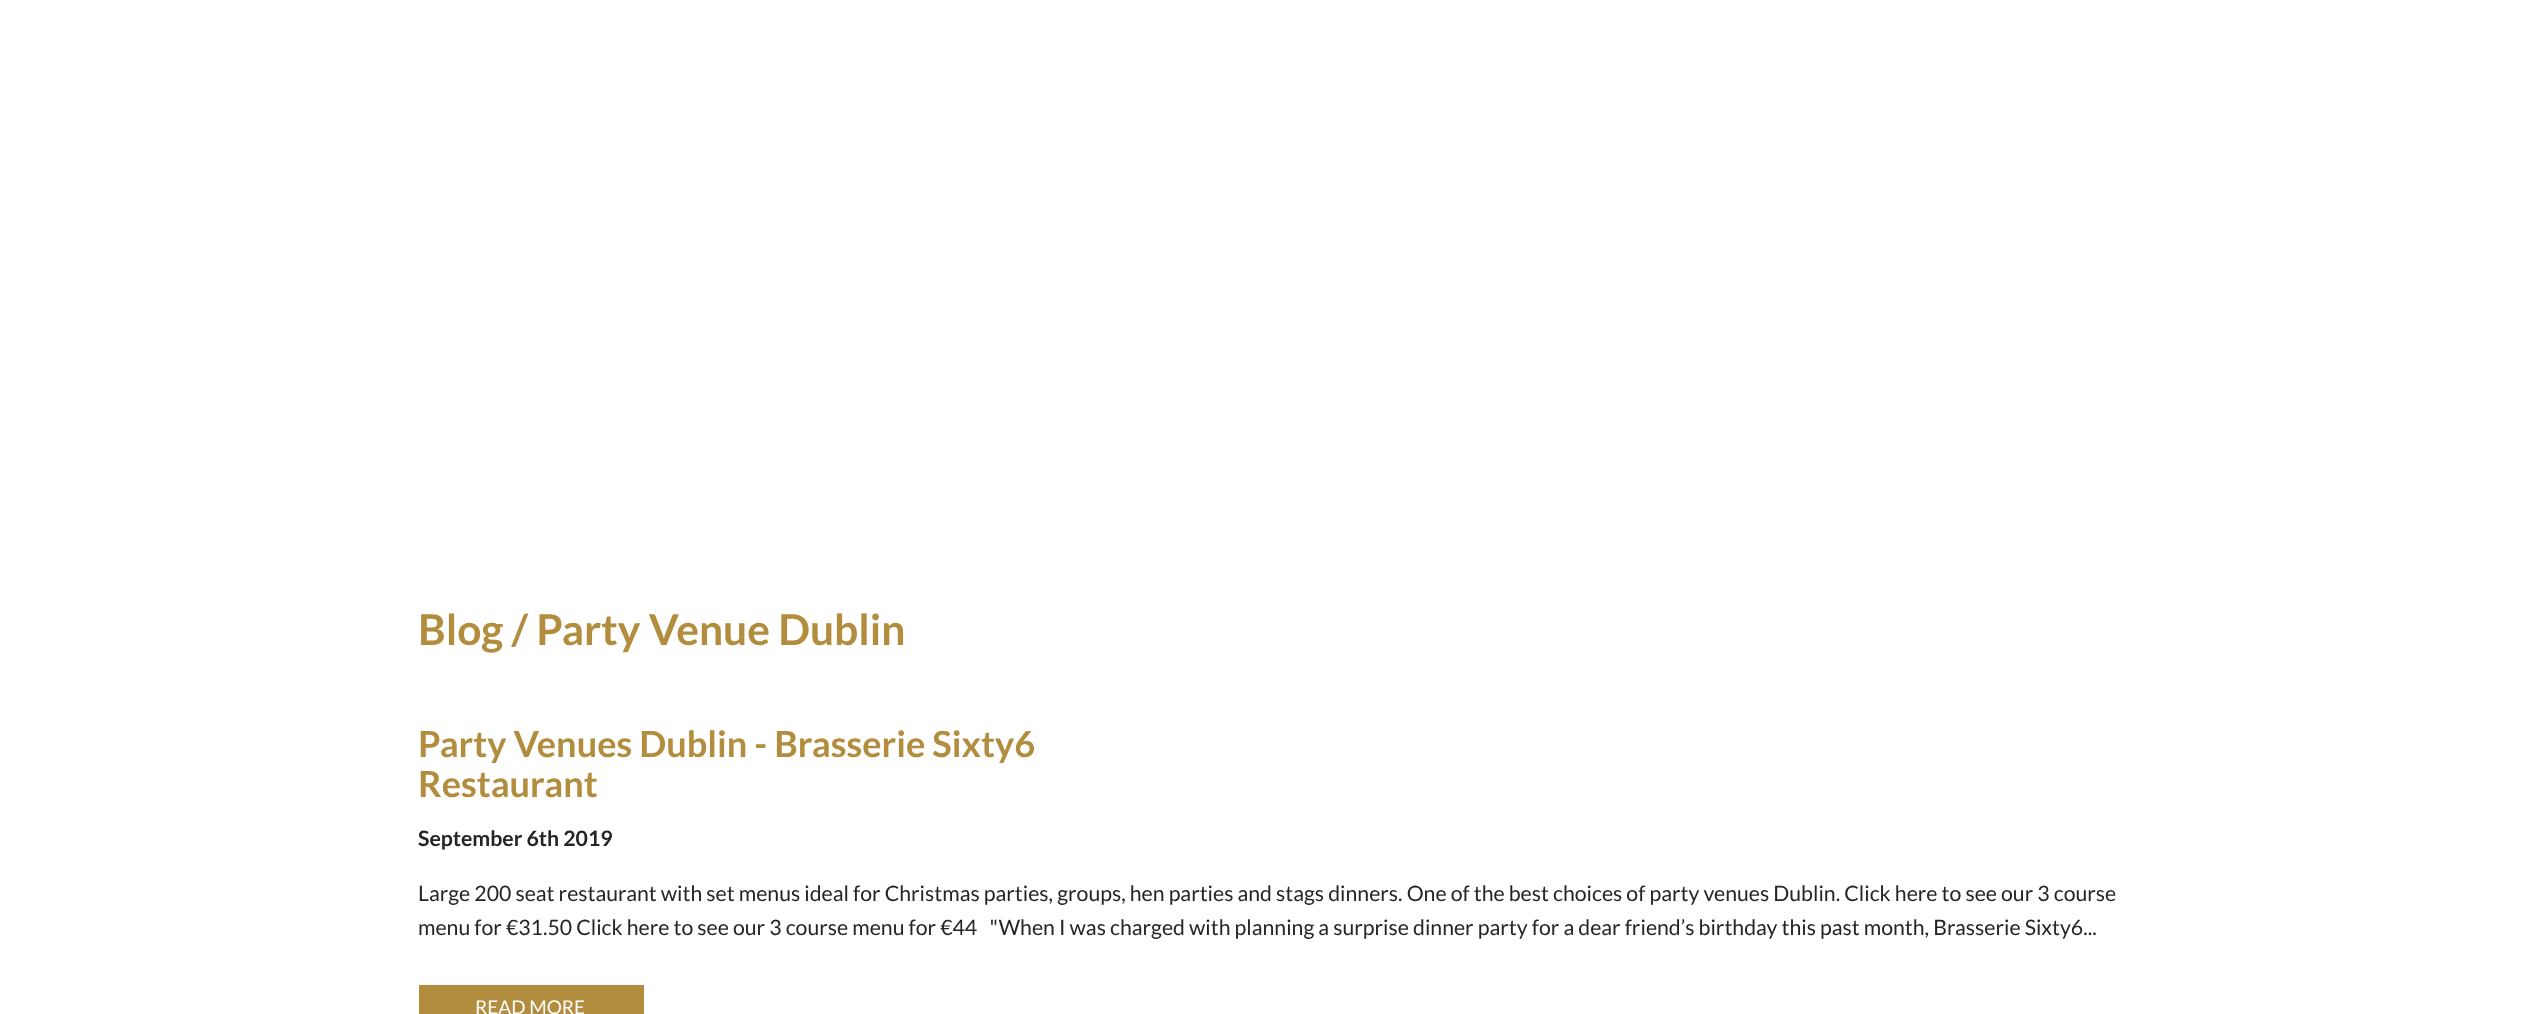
<svg xmlns="http://www.w3.org/2000/svg" width="2536" height="1014">
	<rect width="100%" height="100%" fill="#FFFFFF" />
	<text x="418" y="645" font-family="Lato" font-size="42.5" font-weight="700" fill="#B28D3D">Blog / Party Venue Dublin</text>
	<g font-family="Lato" font-size="36.1" font-weight="700" fill="#B28D3D">
		<text x="418" y="757">Party Venues Dublin - Brasserie Sixty6</text>
		<text x="418" y="797">Restaurant</text>
	</g>
	<text x="418" y="846" font-family="Lato" font-size="21.25" font-weight="700" fill="#252525">September 6th 2019</text>
	<g font-family="Lato" font-size="21.25" fill="#252525">
		<text x="418" y="901">Large 200 seat restaurant with set menus ideal for Christmas parties, groups, hen parties and stags dinners. One of the best choices of party venues Dublin. Click here to see our 3 course</text>
		<text x="418" y="935" xml:space="preserve">menu for €31.50 Click here to see our 3 course menu for €44   "When I was charged with planning a surprise dinner party for a dear friend’s birthday this past month, Brasserie Sixty6...</text>
	</g>
	<rect x="419" y="985" width="225" height="29" fill="#B28D3D" />
	<text x="475" y="1014" font-family="Lato" font-size="19" fill="#FFFFFF">READ MORE</text>
</svg>
